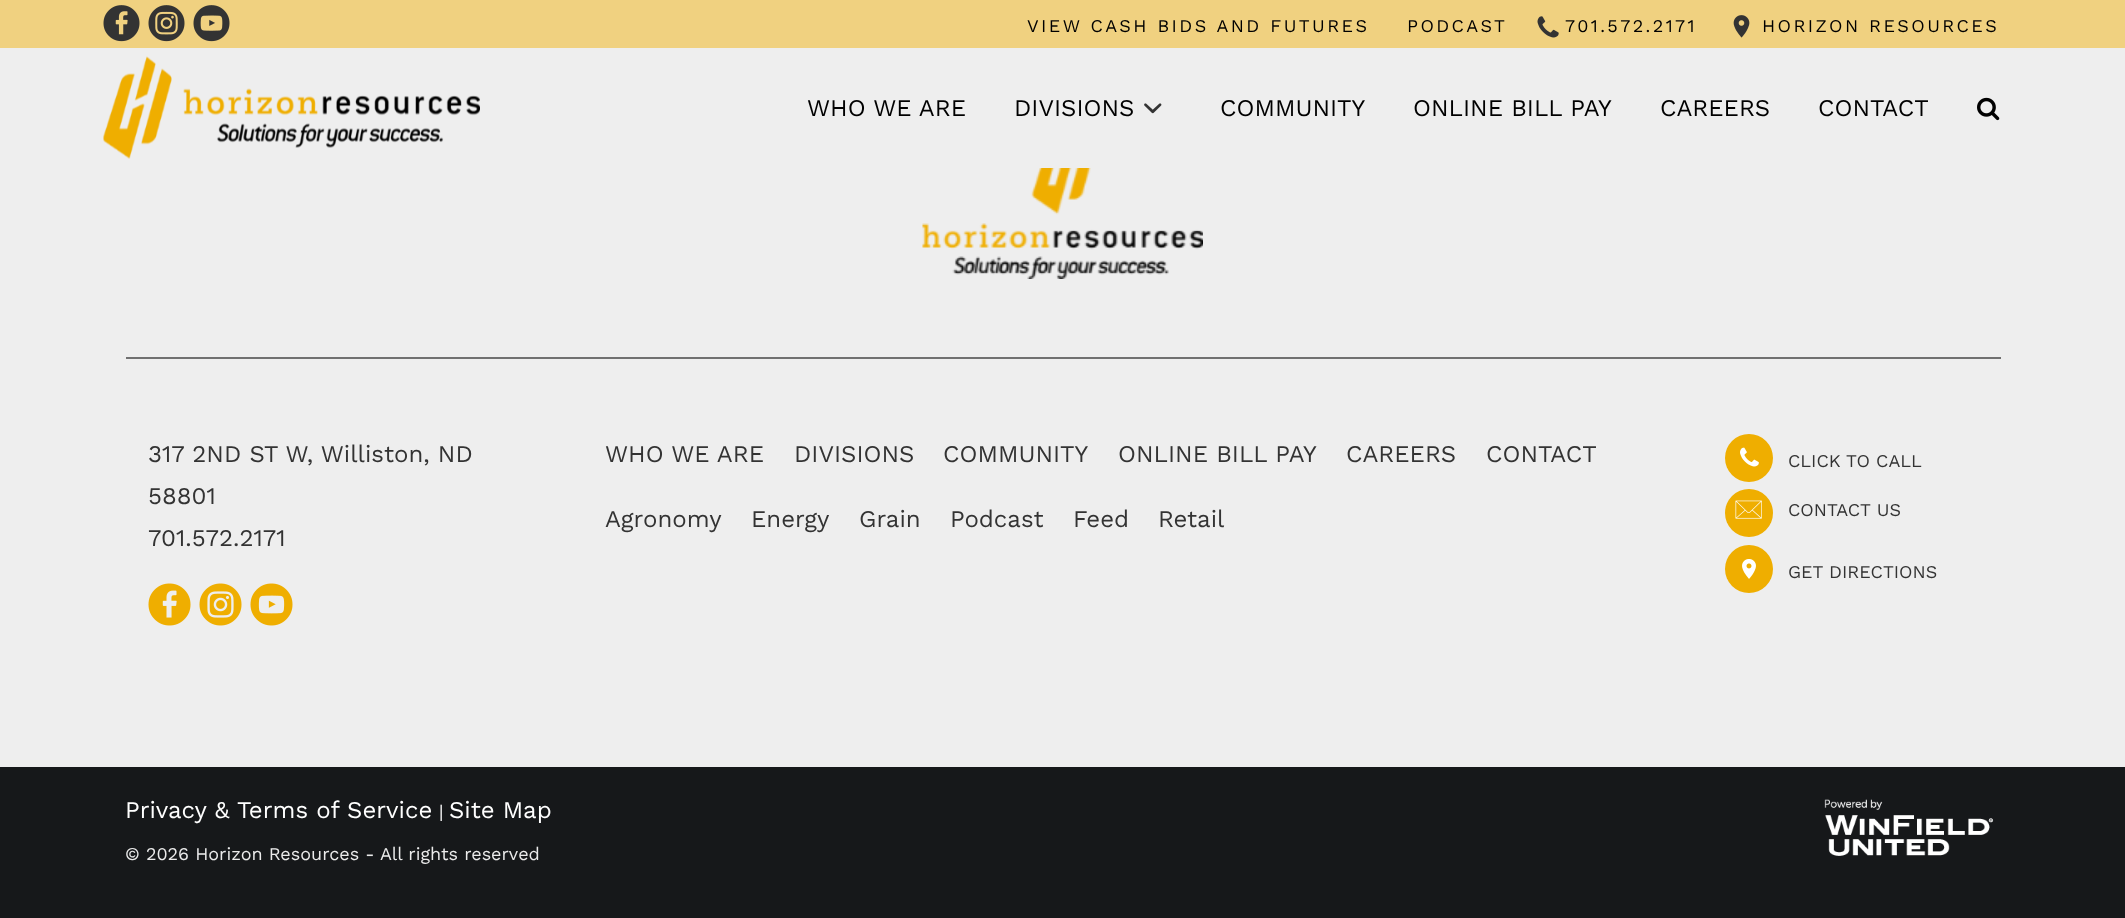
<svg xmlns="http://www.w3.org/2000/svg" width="2125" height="918">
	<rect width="100%" height="100%" fill="#EEEEEE" />
	<rect x="0" y="0" width="2125" height="48" fill="#F0D180" />
	<image x="103" y="5" width="37" height="37" href="assets/img1.png" />
	<image x="148" y="5" width="37" height="37" href="assets/img2.png" />
	<image x="193" y="5" width="37" height="37" href="assets/img3.png" />
	<g font-family="Work Sans" font-size="18" letter-spacing="2.4" fill="#000000">
		<text x="1027" y="32">VIEW CASH BIDS AND FUTURES</text>
		<text x="1407" y="32">PODCAST</text>
	</g>
	<image x="1537" y="16" width="22" height="22" href="assets/img4.png" />
	<text x="1565" y="32" font-family="Work Sans" font-size="18" letter-spacing="2.4" fill="#000000">701.572.2171</text>
	<image x="1733" y="15" width="17" height="23" href="assets/img5.png" />
	<text x="1762" y="32" font-family="Work Sans" font-size="18" letter-spacing="2.4" fill="#000000">HORIZON RESOURCES</text>
	<image x="103" y="56" width="377" height="103" href="assets/img6.png" />
	<g font-family="Work Sans" font-size="24" fill="#000000">
		<text x="807" y="116">WHO WE ARE</text>
		<text x="1014" y="116">DIVISIONS</text>
	</g>
	<image x="1144" y="103" width="18" height="11" href="assets/img7.png" />
	<g font-family="Work Sans" font-size="24" fill="#000000">
		<text x="1220" y="116">COMMUNITY</text>
		<text x="1413" y="116">ONLINE BILL PAY</text>
		<text x="1660" y="116">CAREERS</text>
		<text x="1818" y="116">CONTACT</text>
	</g>
	<image x="1977" y="97" width="23" height="24" href="assets/img8.png" />
	<image x="922" y="168" width="281" height="111" href="assets/img9.png" />
	<rect x="126" y="357" width="1875" height="2" fill="#707070" />
	<g font-family="Work Sans" font-size="24" fill="#333333">
		<text x="148" y="462">317 2ND ST W, Williston, ND</text>
		<text x="148" y="504">58801</text>
		<text x="148" y="546">701.572.2171</text>
	</g>
	<image x="148" y="583" width="43" height="43" href="assets/img10.png" />
	<image x="199" y="583" width="43" height="43" href="assets/img11.png" />
	<image x="250" y="583" width="43" height="43" href="assets/img12.png" />
	<g font-family="Work Sans" font-size="24" fill="#333333">
		<text x="605" y="462">WHO WE ARE</text>
		<text x="794" y="462">DIVISIONS</text>
		<text x="943" y="462">COMMUNITY</text>
		<text x="1118" y="462">ONLINE BILL PAY</text>
		<text x="1346" y="462">CAREERS</text>
		<text x="1486" y="462">CONTACT</text>
		<text x="605" y="527">Agronomy</text>
		<text x="751" y="527">Energy</text>
		<text x="859" y="527">Grain</text>
		<text x="950" y="527">Podcast</text>
		<text x="1073" y="527">Feed</text>
		<text x="1158" y="527">Retail</text>
	</g>
	<circle cx="1749" cy="458" r="24" fill="#EFAE00" />
	<image x="1740" y="447" width="19" height="20" href="assets/img13.png" />
	<text x="1788" y="467" font-family="Work Sans" font-size="18" fill="#333333">CLICK TO CALL</text>
	<circle cx="1749" cy="513" r="24" fill="#EFAE00" />
	<image x="1735" y="500" width="27" height="19" href="assets/img14.png" />
	<text x="1788" y="516" font-family="Work Sans" font-size="18" fill="#333333">CONTACT US</text>
	<circle cx="1749" cy="569" r="24" fill="#EFAE00" />
	<image x="1742" y="559" width="14" height="20" href="assets/img15.png" />
	<text x="1788" y="578" font-family="Work Sans" font-size="18" fill="#333333">GET DIRECTIONS</text>
	<rect x="0" y="767" width="2125" height="151" fill="#16181A" />
	<text x="125" y="818" font-family="Work Sans" font-size="24" fill="#FFFFFF">Privacy &amp; Terms of Service</text>
	<text x="439" y="818" font-family="Work Sans" font-size="18" fill="#FFFFFF">|</text>
	<text x="449" y="818" font-family="Work Sans" font-size="24" fill="#FFFFFF">Site Map</text>
	<text x="125" y="860" font-family="Work Sans" font-size="18" fill="#EBEBEB">© 2026 Horizon Resources - All rights reserved</text>
	<image x="1824" y="799" width="170" height="57" href="assets/img16.png" />
</svg>
